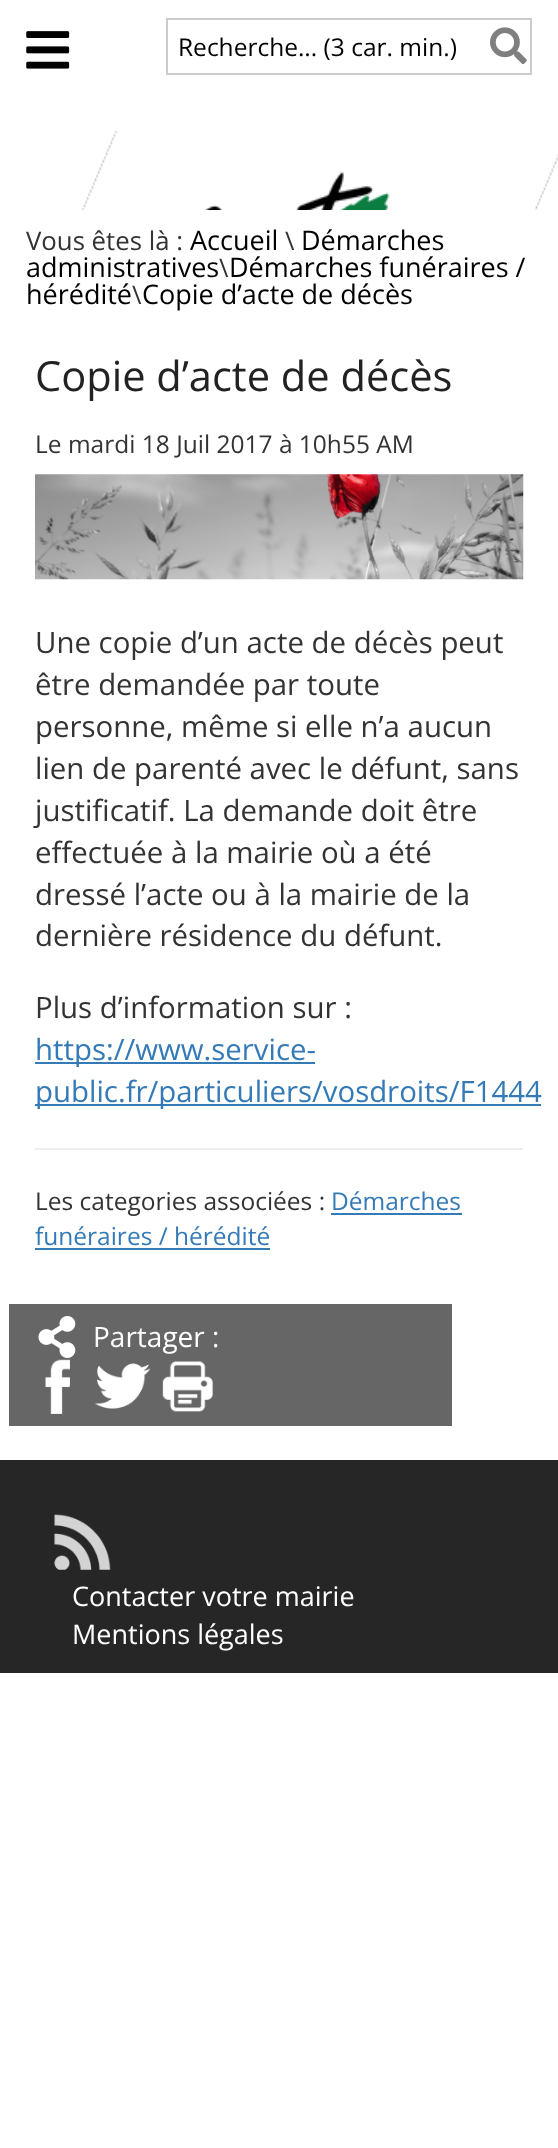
<svg xmlns="http://www.w3.org/2000/svg" width="558" height="2148">
	<rect width="100%" height="100%" fill="#FFFFFF" />
	<image x="26" y="31" width="44" height="38" href="assets/img1.png" />
	<rect x="167" y="19" width="364" height="55" fill="none" stroke="#CCCCCC" stroke-width="2" />
	<text x="178" y="56" font-family="Open Sans" font-size="24.5" fill="#000000">Recherche... (3 car. min.)</text>
	<image x="490" y="27" width="37" height="37" href="assets/img2.png" />
	<image x="81" y="131" width="477" height="79" href="assets/img3.png" />
	<text x="26" y="250" font-family="Open Sans" font-size="25.75" fill="#333333">Vous êtes là :</text>
	<text x="190" y="250" font-family="Open Sans" font-size="27" fill="#000000">Accueil</text>
	<text x="285" y="250" font-family="Open Sans" font-size="25.75" fill="#333333">\</text>
	<g font-family="Open Sans" font-size="27" fill="#000000">
		<text x="301" y="250">Démarches</text>
		<text x="26" y="277">administratives</text>
	</g>
	<text x="219" y="277" font-family="Open Sans" font-size="25.75" fill="#333333">\</text>
	<g font-family="Open Sans" font-size="27" fill="#000000">
		<text x="229" y="277">Démarches funéraires /</text>
		<text x="26" y="304">hérédité</text>
	</g>
	<text x="132" y="304" font-family="Open Sans" font-size="25.75" fill="#333333">\</text>
	<text x="142" y="304" font-family="Open Sans" font-size="27" fill="#000000">Copie d’acte de décès</text>
	<text x="35" y="391" font-family="Open Sans" font-size="41.6" fill="#222222">Copie d’acte de décès</text>
	<text x="35" y="453" font-family="Open Sans" font-size="24.5" fill="#333333">Le mardi 18 Juil 2017 à 10h55 AM</text>
	<image x="35" y="474" width="489" height="106" href="assets/img4.png" />
	<g font-family="Open Sans" font-size="29.4" fill="#333333">
		<text x="35" y="653">Une copie d’un acte de décès peut</text>
		<text x="35" y="695">être demandée par toute</text>
		<text x="35" y="737">personne, même si elle n’a aucun</text>
		<text x="35" y="779">lien de parenté avec le défunt, sans</text>
		<text x="35" y="821">justificatif. La demande doit être</text>
		<text x="35" y="863">effectuée à la mairie où a été</text>
		<text x="35" y="905">dressé l’acte ou à la mairie de la</text>
		<text x="35" y="946">dernière résidence du défunt.</text>
		<text x="35" y="1018">Plus d’information sur :</text>
	</g>
	<rect x="35" y="1062" width="280" height="2" fill="#337AB7" />
	<text x="35" y="1060" font-family="Open Sans" font-size="29.4" fill="#337AB7">https://www.service-</text>
	<rect x="35" y="1104" width="506" height="2" fill="#337AB7" />
	<text x="35" y="1102" font-family="Open Sans" font-size="29.4" fill="#337AB7">public.fr/particuliers/vosdroits/F1444</text>
	<rect x="35" y="1148" width="488" height="2" fill="#EEEEEE" />
	<text x="35" y="1210" font-family="Open Sans" font-size="24.5" fill="#333333">Les categories associées :</text>
	<text x="331" y="1210" font-family="Open Sans" font-size="24.5" fill="#337AB7">Démarches</text>
	<rect x="331" y="1213" width="131" height="2" fill="#337AB7" />
	<text x="35" y="1245" font-family="Open Sans" font-size="24.5" fill="#337AB7">funéraires / hérédité</text>
	<rect x="35" y="1248" width="235" height="2" fill="#337AB7" />
	<rect x="9" y="1304" width="443" height="122" fill="#666666" />
	<image x="38" y="1316" width="38" height="42" href="assets/img5.png" />
	<text x="93" y="1347" font-family="Open Sans" font-size="28" fill="#FFFFFF">Partager :</text>
	<image x="45" y="1359" width="25" height="55" href="assets/img6.png" />
	<image x="95" y="1363" width="56" height="46" href="assets/img7.png" />
	<image x="162" y="1361" width="51" height="51" href="assets/img8.png" />
	<rect x="0" y="1460" width="558" height="213" fill="#262626" />
	<image x="54" y="1514" width="57" height="56" href="assets/img9.png" />
	<g font-family="Open Sans" font-size="27" fill="#FFFFFF">
		<text x="72" y="1606">Contacter votre mairie</text>
		<text x="72" y="1644">Mentions légales</text>
	</g>
</svg>
